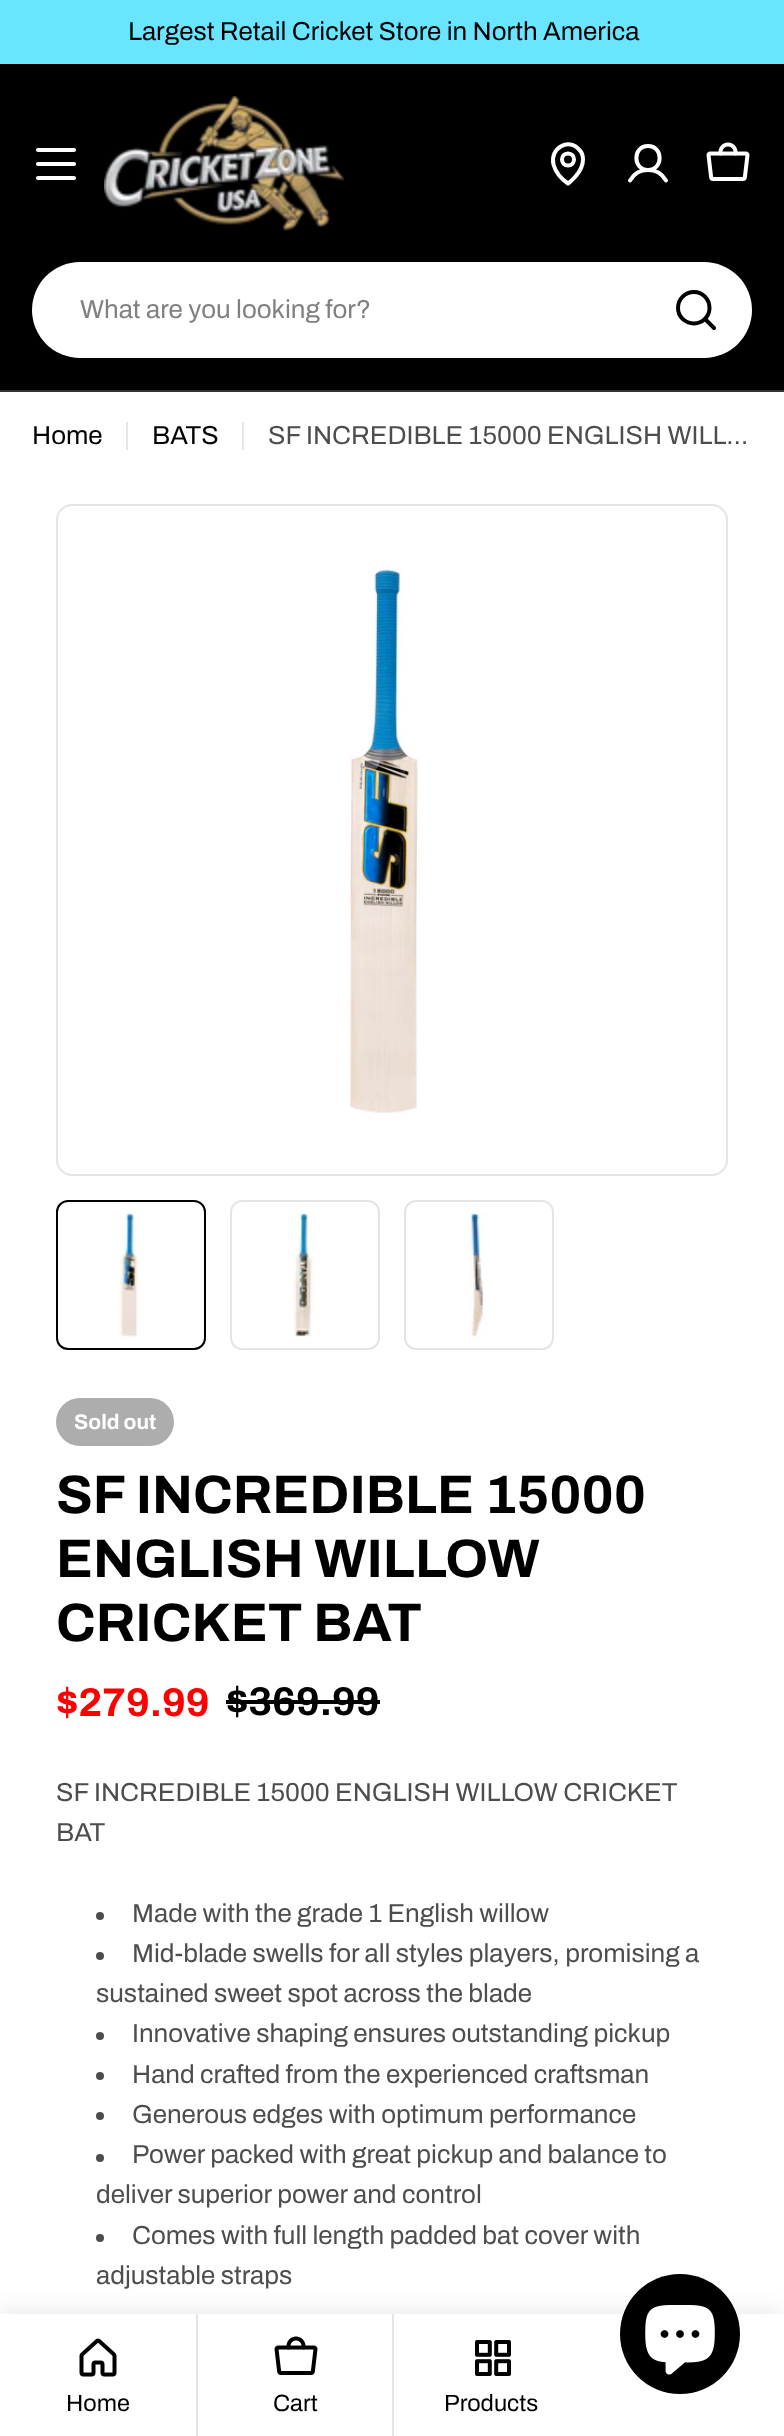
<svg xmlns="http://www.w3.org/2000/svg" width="784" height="2436">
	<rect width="100%" height="100%" fill="#FFFFFF" />
	<rect x="0" y="0" width="784" height="64" fill="#69E5FF" />
	<text x="128" y="40" font-family="Archivo" font-size="26" fill="#000000">Largest Retail Cricket Store in North America</text>
	<rect x="0" y="64" width="784" height="326" fill="#000000" />
	<rect x="36" y="162" width="40" height="4" rx="2" fill="#FFFFFF" />
	<rect x="36" y="148" width="40" height="4" rx="2" fill="#FFFFFF" />
	<rect x="36" y="176" width="40" height="4" rx="2" fill="#FFFFFF" />
	<image x="104" y="96" width="240" height="135" href="assets/img1.png" />
	<path d="M568 165.5C576 165.5 576 153.5 568 153.5C560 153.5 560 165.5 568 165.5ZM583 159.5C583 173 568 183.5 568 183.5C561.5 179 555.5 172 553.5 164.5C549.5 148 569 137 579.5 150C582 152.5 583 156 583 159.5Z" fill="none" stroke="#FFFFFF" stroke-width="4" stroke-linecap="round" stroke-linejoin="round" />
	<path d="M648 170C663.5 170 663.5 146 648 146C632.5 146 632.5 170 648 170ZM630 180.5C638 166.5 658 166.5 666 180.5" fill="none" stroke="#FFFFFF" stroke-width="4" stroke-linecap="round" stroke-linejoin="round" />
	<image x="706" y="142" width="44" height="39" href="assets/img2.png" />
	<rect x="32" y="262" width="720" height="96" rx="48" fill="#FFFFFF" />
	<text x="80" y="318" font-family="Archivo" font-size="26" fill="#808080">What are you looking for?</text>
	<path d="M694 323.5C702.5 323.5 709.5 316.5 709.5 308C709.5 299 702.5 292 694 292C685 292 678 299 678 308C678 316.5 685 323.5 694 323.5ZM705 319L714 328" fill="none" stroke="#000000" stroke-width="4" stroke-linecap="round" stroke-linejoin="round" />
	<rect x="0" y="390" width="784" height="2" fill="#333333" />
	<text x="32" y="444" font-family="Archivo" font-size="26" fill="#000000">Home</text>
	<rect x="126" y="422" width="2" height="28" fill="#E6E6E6" />
	<text x="152" y="444" font-family="Archivo" font-size="26" fill="#000000">BATS</text>
	<rect x="242" y="422" width="2" height="28" fill="#E6E6E6" />
	<text x="268" y="444" font-family="Archivo" font-size="26" fill="#4D4D4D">SF INCREDIBLE 15000 ENGLISH WILL…</text>
	<image x="349" y="566" width="71" height="548" href="assets/img3.png" />
	<rect x="57" y="505" width="670" height="670" rx="15" fill="none" stroke="#E5E5E5" stroke-width="2" />
	<image x="119" y="1212" width="22" height="126" href="assets/img4.png" />
	<rect x="57" y="1201" width="148" height="148" rx="11" fill="none" stroke="#000000" stroke-width="2" />
	<image x="293" y="1212" width="22" height="125" href="assets/img5.png" />
	<rect x="231" y="1201" width="148" height="148" rx="11" fill="none" stroke="#E5E5E5" stroke-width="2" />
	<image x="469" y="1212" width="18" height="125" href="assets/img6.png" />
	<rect x="405" y="1201" width="148" height="148" rx="11" fill="none" stroke="#E5E5E5" stroke-width="2" />
	<rect x="56" y="1398" width="118" height="48" rx="24" fill="#ADADAD" />
	<text x="74" y="1429" font-family="Archivo" font-size="21" font-weight="700" fill="#FFFFFF">Sold out</text>
	<g font-family="Archivo" font-size="54.25" font-weight="700" fill="#000000">
		<text x="56" y="1513">SF INCREDIBLE 15000</text>
		<text x="56" y="1577">ENGLISH WILLOW</text>
		<text x="56" y="1641">CRICKET BAT</text>
	</g>
	<text x="56" y="1716" font-family="Archivo" font-size="40" font-weight="700" fill="#FF0000">$279.99</text>
	<text x="226" y="1715" font-family="Archivo" font-size="40" font-weight="700" fill="#000000">$369.99</text>
	<rect x="226" y="1700" width="154" height="4" fill="#000000" />
	<g font-family="Archivo" font-size="26" fill="#4D4D4D">
		<text x="56" y="1801">SF INCREDIBLE 15000 ENGLISH WILLOW CRICKET</text>
		<text x="56" y="1841">BAT</text>
	</g>
	<circle cx="100" cy="1916" r="4" fill="#4D4D4D" />
	<text x="132" y="1922" font-family="Archivo" font-size="26" fill="#4D4D4D">Made with the grade 1 English willow</text>
	<circle cx="100" cy="1956" r="4" fill="#4D4D4D" />
	<g font-family="Archivo" font-size="26" fill="#4D4D4D">
		<text x="132" y="1962">Mid-blade swells for all styles players, promising a</text>
		<text x="96" y="2002">sustained sweet spot across the blade</text>
	</g>
	<circle cx="100" cy="2036" r="4" fill="#4D4D4D" />
	<text x="132" y="2042" font-family="Archivo" font-size="26" fill="#4D4D4D">Innovative shaping ensures outstanding pickup</text>
	<circle cx="100" cy="2076" r="4" fill="#4D4D4D" />
	<text x="132" y="2083" font-family="Archivo" font-size="26" fill="#4D4D4D">Hand crafted from the experienced craftsman</text>
	<circle cx="100" cy="2116" r="4" fill="#4D4D4D" />
	<text x="132" y="2123" font-family="Archivo" font-size="26" fill="#4D4D4D">Generous edges with optimum performance</text>
	<circle cx="100" cy="2158" r="4" fill="#4D4D4D" />
	<g font-family="Archivo" font-size="26" fill="#4D4D4D">
		<text x="132" y="2163">Power packed with great pickup and balance to</text>
		<text x="96" y="2203">deliver superior power and control</text>
	</g>
	<circle cx="100" cy="2238" r="4" fill="#4D4D4D" />
	<g font-family="Archivo" font-size="26" fill="#4D4D4D">
		<text x="132" y="2244">Comes with full length padded bat cover with</text>
		<text x="96" y="2284">adjustable straps</text>
	</g>
	<rect x="-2" y="2310" width="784" height="122" fill="#000000" fill-opacity="0.08" filter="blur(10px)" />
	<rect x="0" y="2314" width="784" height="122" fill="#FFFFFF" />
	<image x="79" y="2338" width="38" height="39" href="assets/img7.png" />
	<text x="66" y="2411" font-family="Archivo" font-size="23.5" fill="#000000">Home</text>
	<rect x="196" y="2314" width="2" height="122" fill="#E5E5E5" />
	<image x="274" y="2336" width="44" height="39" href="assets/img8.png" />
	<text x="273" y="2411" font-family="Archivo" font-size="23.5" fill="#000000">Cart</text>
	<rect x="392" y="2314" width="2" height="122" fill="#E5E5E5" />
	<image x="475" y="2340" width="36" height="36" href="assets/img9.png" />
	<text x="444" y="2411" font-family="Archivo" font-size="23.5" fill="#000000">Products</text>
	<circle cx="680" cy="2334" r="60" fill="#000000" />
	<image x="645" y="2305" width="70" height="70" href="assets/img10.png" />
</svg>
